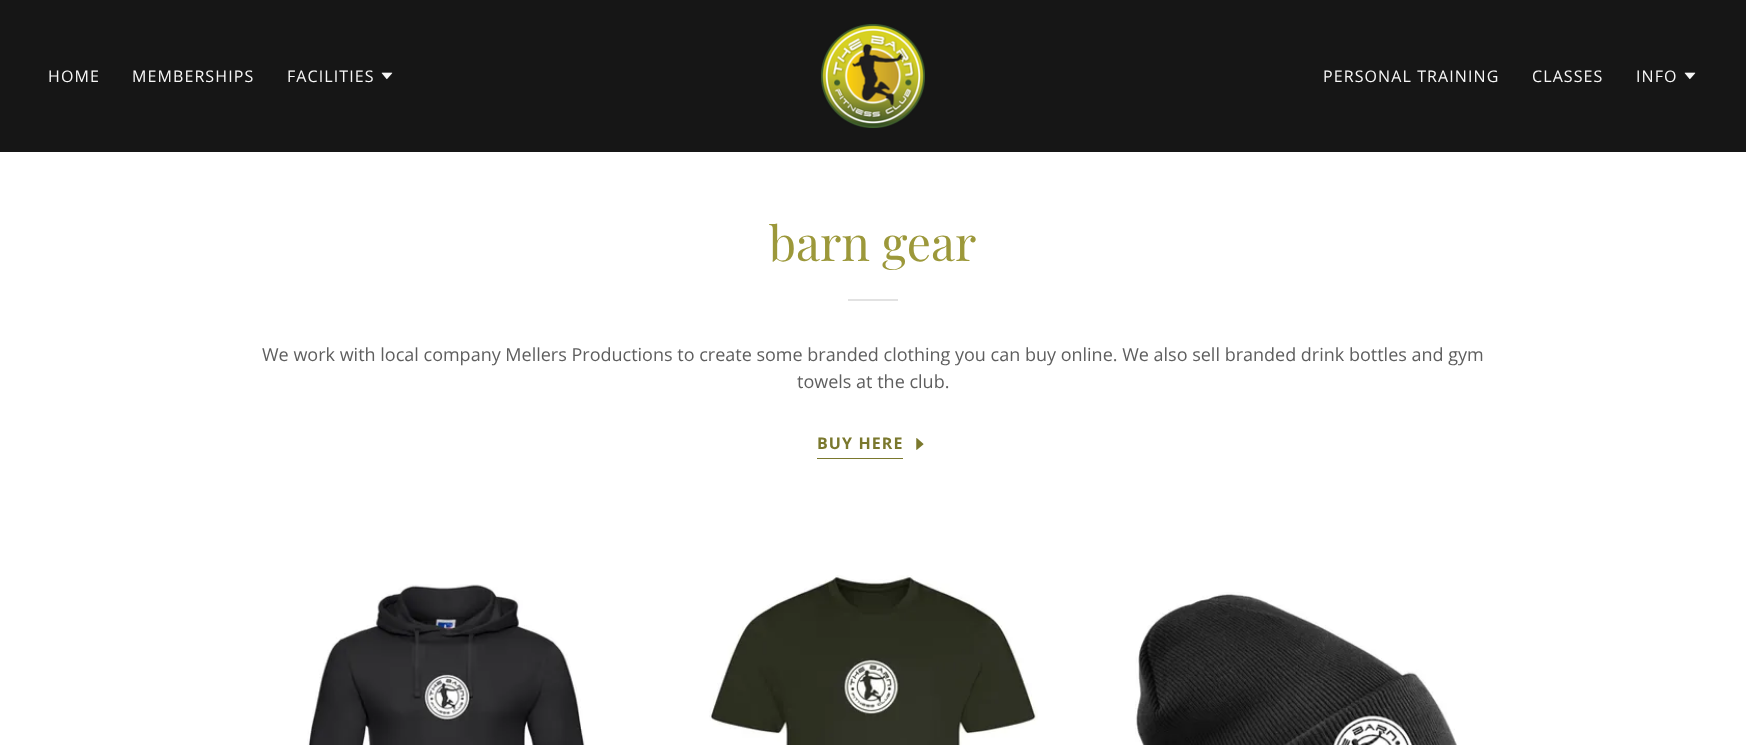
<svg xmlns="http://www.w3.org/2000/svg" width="1746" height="745">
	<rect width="100%" height="100%" fill="#161616" />
	<g font-family="Open Sans" font-size="16" letter-spacing="1.1" fill="#F7F7F7">
		<text x="48" y="82">HOME</text>
		<text x="132" y="82">MEMBERSHIPS</text>
		<text x="287" y="82">FACILITIES</text>
	</g>
	<image x="381" y="72" width="12" height="8" href="assets/img1.png" />
	<image x="821" y="24" width="104" height="104" href="assets/img2.png" />
	<g font-family="Open Sans" font-size="16" letter-spacing="1.1" fill="#F7F7F7">
		<text x="1323" y="82">PERSONAL TRAINING</text>
		<text x="1532" y="82">CLASSES</text>
		<text x="1636" y="82">INFO</text>
	</g>
	<image x="1684" y="72" width="12" height="8" href="assets/img1.png" />
	<rect x="0" y="152" width="1746" height="593" fill="#FFFFFF" />
	<text x="769" y="261" font-family="Playfair Display" font-size="48" fill="#9C983A">barn gear</text>
	<rect x="848" y="299" width="50" height="2" fill="#E2E2E2" />
	<g font-family="Open Sans" font-size="18" fill="#5E5E5E">
		<text x="262" y="361">We work with local company Mellers Productions to create some branded clothing you can buy online. We also sell branded drink bottles and gym</text>
		<text x="797" y="388">towels at the club.</text>
	</g>
	<rect x="817" y="458" width="86" height="1" fill="#7A782D" />
	<text x="817" y="449" font-family="Open Sans" font-size="16" font-weight="700" letter-spacing="1.1" fill="#7A782D">BUY HERE</text>
	<image x="916" y="438" width="8" height="12" href="assets/img3.png" />
	<image x="307" y="584" width="278" height="161" href="assets/img4.png" />
	<image x="709" y="575" width="329" height="170" href="assets/img5.png" />
	<image x="1135" y="592" width="322" height="153" href="assets/img6.png" />
</svg>
